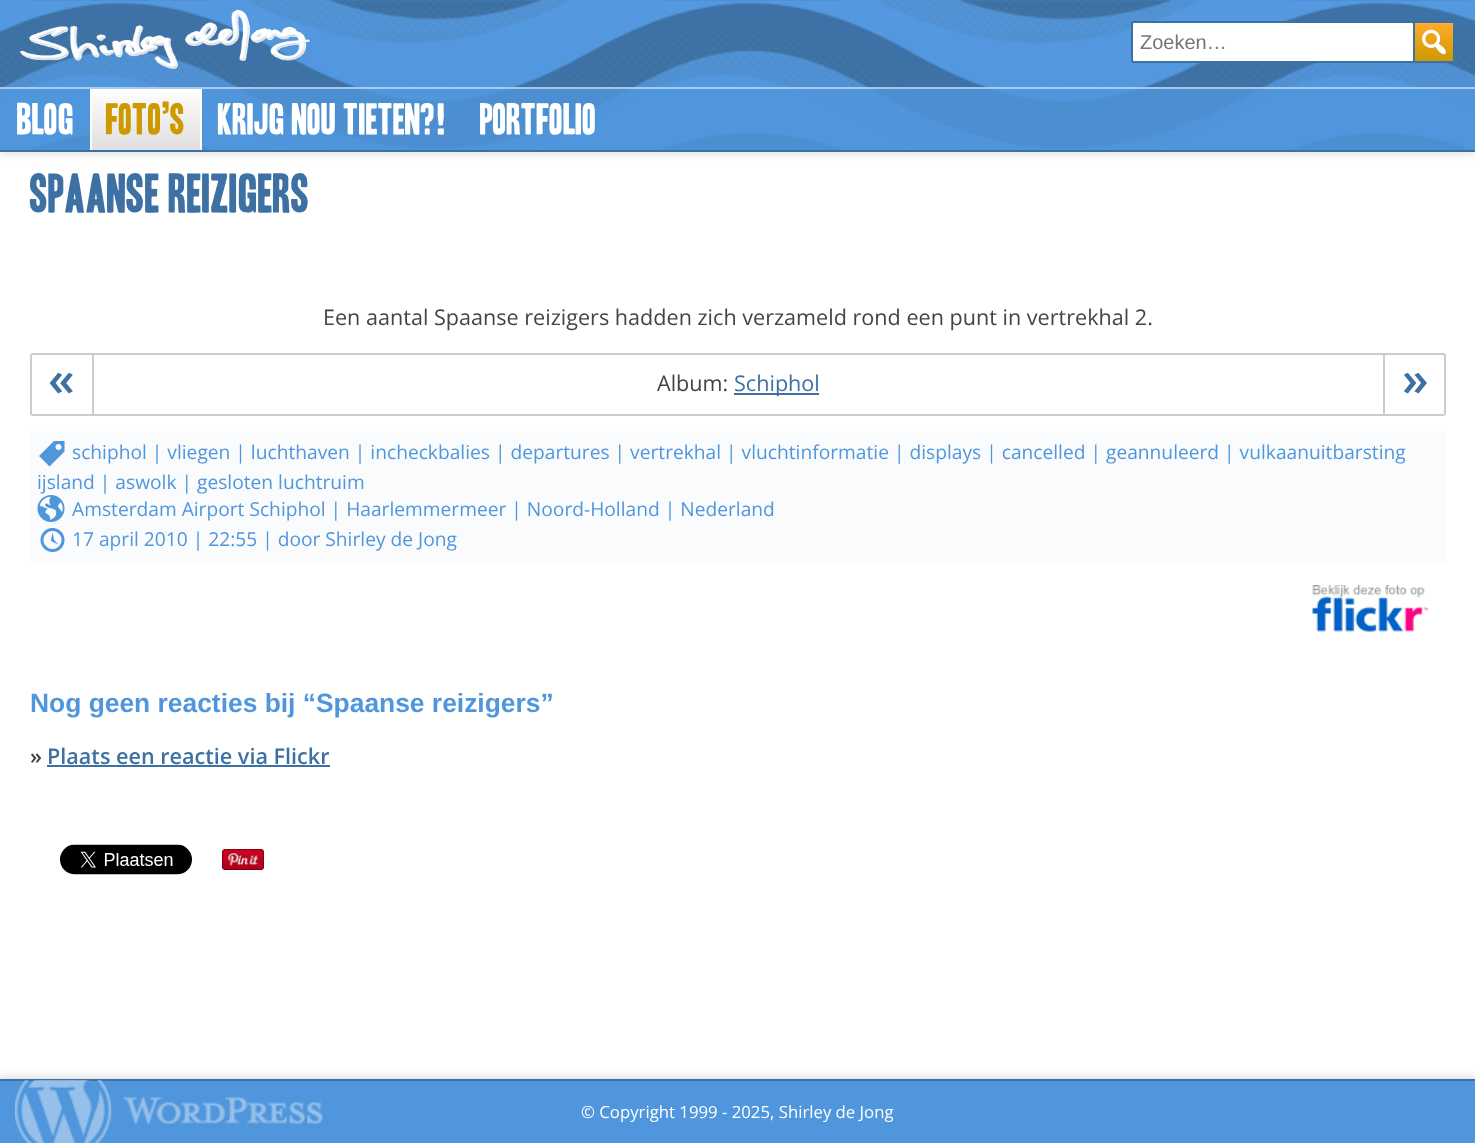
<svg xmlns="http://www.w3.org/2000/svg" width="1475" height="1143">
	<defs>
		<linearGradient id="g1" gradientUnits="userSpaceOnUse" x1="1434" y1="22" x2="1434" y2="62"><stop offset="0" stop-color="#FFFFFF" /><stop offset="0.04" stop-color="#FFAA27" /><stop offset="1" stop-color="#CC9900" /></linearGradient>
		<linearGradient id="g2" gradientUnits="userSpaceOnUse" x1="146" y1="89" x2="146" y2="150"><stop offset="0" stop-color="#FFFFFF" /><stop offset="1" stop-color="#DEDEDE" /></linearGradient>
	</defs>
	<rect width="100%" height="100%" fill="#FFFFFF" />
	<rect x="0" y="2" width="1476" height="151" fill="#000000" fill-opacity="0.15" filter="blur(4px)" />
	<image x="0" y="0" width="1475" height="150" href="assets/img1.png" />
	<rect x="0" y="150" width="1475" height="2" fill="#3D70A3" />
	<image x="20" y="9" width="290" height="61" href="assets/img2.png" />
	<path d="M1134 22H1412C1413 22 1414 23 1414 24V62H1134C1133 62 1132 61 1132 60V24C1132 23 1133 22 1134 22Z" fill="#FFFFFF" stroke="#3D70A3" stroke-width="2" />
	<text x="1140" y="49" font-family="Liberation Sans" font-size="20" fill="#757575">Zoeken…</text>
	<rect x="1415" y="23" width="40" height="39" fill="url(#g1)" />
	<path d="M1414 22H1454V60C1454 61 1453 62 1452 62H1414Z" fill="none" stroke="#3D70A3" stroke-width="2" />
	<image x="1422" y="29" width="24" height="26" href="assets/img3.png" />
	<rect x="0" y="87" width="1475" height="63" fill="#5096DC" fill-opacity="0.8" />
	<rect x="0" y="87" width="1475" height="2" fill="#FFFFFF" fill-opacity="0.5" />
	<text x="17" y="134" font-family="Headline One" font-size="38.5" fill="#FFFFFF">Blog</text>
	<rect x="92" y="89" width="108" height="61" fill="url(#g2)" />
	<rect x="200" y="89" width="2" height="61" fill="#FFFFFF" />
	<rect x="90" y="89" width="2" height="61" fill="#FFFFFF" />
	<text x="106" y="134" font-family="Headline One" font-size="38.5" fill="#CC9900">Foto’s</text>
	<g font-family="Headline One" font-size="38.5" fill="#FFFFFF">
		<text x="218" y="134">Krijg nou tieten?!</text>
		<text x="480" y="134">Portfolio</text>
	</g>
	<text x="30" y="212" font-family="Headline One" font-size="48" fill="#3D70A3">Spaanse reizigers</text>
	<text x="323" y="325" font-family="Open Sans" font-size="21.6" fill="#444444">Een aantal Spaanse reizigers hadden zich verzameld rond een punt in vertrekhal 2.</text>
	<rect x="31" y="354" width="1414" height="61" rx="2" fill="none" stroke="#CCCCCC" stroke-width="2" />
	<rect x="92" y="354" width="2" height="60" fill="#CCCCCC" />
	<text x="48" y="396" font-family="Open Sans" font-size="48" font-weight="600" fill="#3D70A3">«</text>
	<text x="657" y="391" font-family="Open Sans" font-size="21.6" fill="#444444">Album:</text>
	<rect x="734" y="393" width="85" height="2" fill="#3D70A3" />
	<text x="734" y="391" font-family="Open Sans" font-size="21.6" fill="#3D70A3">Schiphol</text>
	<rect x="1383" y="354" width="2" height="60" fill="#CCCCCC" />
	<text x="1402" y="396" font-family="Open Sans" font-size="48" font-weight="600" fill="#3D70A3">»</text>
	<rect x="30" y="431" width="1416" height="132" rx="3" fill="#F9FBFD" />
	<image x="39" y="441" width="26" height="26" href="assets/img4.png" />
	<g font-family="Open Sans" font-size="19.2" fill="#5096DC">
		<text x="72" y="459">schiphol | vliegen | luchthaven | incheckbalies | departures | vertrekhal | vluchtinformatie | displays | cancelled | geannuleerd | vulkaanuitbarsting</text>
		<text x="37" y="489">ijsland | aswolk | gesloten luchtruim</text>
	</g>
	<image x="37" y="495" width="28" height="27" href="assets/img5.png" />
	<text x="72" y="516" font-family="Open Sans" font-size="19.2" fill="#5096DC">Amsterdam Airport Schiphol | Haarlemmermeer | Noord-Holland | Nederland</text>
	<image x="40" y="528" width="25" height="24" href="assets/img6.png" />
	<text x="72" y="546" font-family="Open Sans" font-size="19.2" fill="#5096DC">17 april 2010 | 22:55 | door Shirley de Jong</text>
	<image x="1312" y="585" width="116" height="47" href="assets/img7.png" />
	<text x="30" y="712" font-family="Liberation Sans" font-size="26.4" font-weight="700" fill="#5096DC">Nog geen reacties bij “Spaanse reizigers”</text>
	<text x="30" y="764" font-family="Open Sans" font-size="21.6" font-weight="600" fill="#444444">»</text>
	<text x="47" y="764" font-family="Open Sans" font-size="21.6" font-weight="600" fill="#3D70A3">Plaats een reactie via Flickr</text>
	<rect x="47" y="765" width="283" height="2" fill="#3D70A3" />
	<image x="60" y="844" width="132" height="31" href="assets/img8.png" />
	<image x="222" y="849" width="42" height="21" href="assets/img9.png" />
	<rect x="0" y="1077" width="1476" height="65" fill="#000000" fill-opacity="0.15" filter="blur(4px)" />
	<rect x="0" y="1081" width="1475" height="62" fill="#5096DC" />
	<rect x="0" y="1079" width="1475" height="2" fill="#3D70A3" />
	<image x="15" y="1080" width="308" height="63" href="assets/img10.png" />
	<text x="581" y="1118" font-family="Open Sans" font-size="16.75" fill="#FFFFFF">© Copyright 1999 - 2025, Shirley de Jong</text>
</svg>
